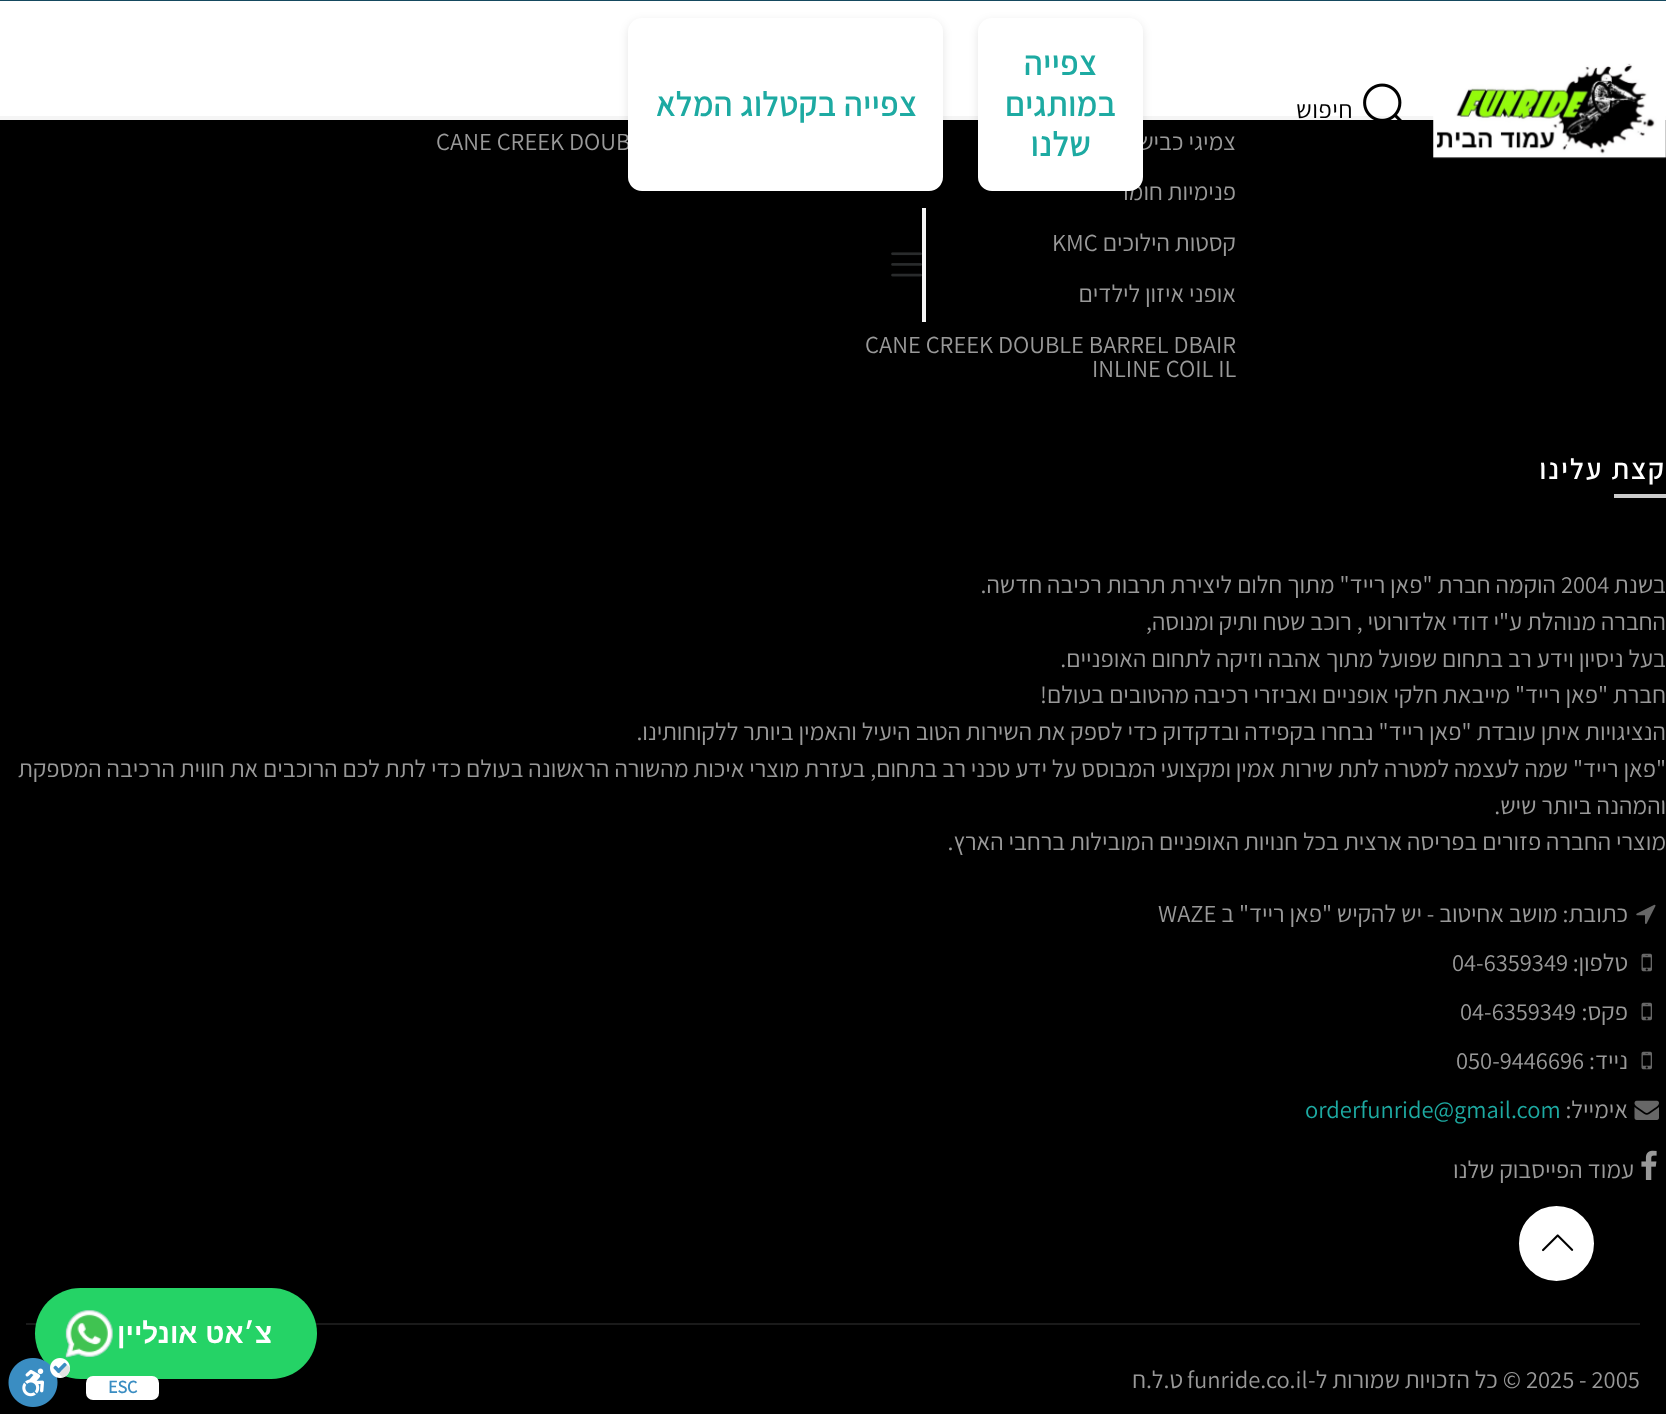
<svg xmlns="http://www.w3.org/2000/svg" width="1666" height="1414">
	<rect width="100%" height="100%" fill="#000000" />
	<rect x="0" y="1" width="1666" height="115" fill="#FFFFFF" />
	<rect x="0" y="116" width="1666" height="4" fill="#F5F5F5" />
	<image x="1433" y="63" width="233" height="96" href="assets/img1.png" />
	<image x="1363" y="83" width="39" height="37" href="assets/img2.png" />
	<text x="1353" y="118" font-family="Assistant" font-size="25" font-weight="200" letter-spacing="0.5" direction="rtl" fill="#000000">חיפוש</text>
	<rect x="978" y="21" width="165" height="173" rx="14" fill="#000000" fill-opacity="0.1" filter="blur(5px)" />
	<g font-family="Assistant" font-size="24.5" font-weight="200" direction="rtl" fill="#999999">
		<text x="1236" y="150">צמיגי כביש</text>
		<text x="1236" y="200">פנימיות חומר</text>
	</g>
	<rect x="978" y="18" width="165" height="173" rx="14" fill="#FFFFFF" />
	<g font-family="Assistant" font-size="33.5" font-weight="700" letter-spacing="0.9" direction="rtl" fill="#1DAAA2">
		<text x="1097" y="75">צפייה</text>
		<text x="1116" y="116">במותגים</text>
		<text x="1091" y="156">שלנו</text>
	</g>
	<rect x="628" y="21" width="315" height="173" rx="14" fill="#000000" fill-opacity="0.1" filter="blur(5px)" />
	<text x="436" y="150" font-family="Assistant" font-size="24.5" font-weight="200" fill="#999999">CANE CREEK DOUB</text>
	<rect x="628" y="18" width="315" height="173" rx="14" fill="#FFFFFF" />
	<text x="917" y="116" font-family="Assistant" font-size="33.5" font-weight="700" letter-spacing="0.9" direction="rtl" fill="#1DAAA2">צפייה בקטלוג המלא</text>
	<rect x="922" y="208" width="4" height="114" fill="#F5F5F5" />
	<image x="891" y="252" width="31" height="25" href="assets/img3.png" />
	<text x="1236" y="251" font-family="Assistant" font-size="24.5" font-weight="200" direction="rtl" fill="#999999">קסטות הילוכים</text>
	<text x="1052" y="251" font-family="Assistant" font-size="24.5" font-weight="200" fill="#999999">KMC</text>
	<text x="1236" y="302" font-family="Assistant" font-size="24.5" font-weight="200" direction="rtl" fill="#999999">אופני איזון לילדים</text>
	<g font-family="Assistant" font-size="24.5" font-weight="200" fill="#999999">
		<text x="865" y="353">CANE CREEK DOUBLE BARREL DBAIR</text>
		<text x="1092" y="377">INLINE COIL IL</text>
	</g>
	<text x="1666" y="479" font-family="Assistant" font-size="28" font-weight="700" letter-spacing="2.6" direction="rtl" fill="#FFFFFF">קצת עלינו</text>
	<rect x="1614" y="494" width="52" height="4" fill="#CCCCCC" />
	<text x="1666" y="593" font-family="Assistant" font-size="24.5" font-weight="200" direction="rtl" fill="#999999">בשנת</text>
	<text x="1561" y="593" font-family="Assistant" font-size="24.5" font-weight="200" fill="#999999">2004</text>
	<g font-family="Assistant" font-size="24.5" font-weight="200" direction="rtl" fill="#999999">
		<text x="1556" y="593">הוקמה חברת "פאן רייד" מתוך חלום ליצירת תרבות רכיבה חדשה.</text>
		<text x="1666" y="630">החברה מנוהלת ע"י</text>
		<text x="1489" y="630">דודי אלדורוטי , רוכב שטח ותיק ומנוסה,</text>
		<text x="1666" y="667">בעל ניסיון וידע רב בתחום שפועל מתוך אהבה וזיקה לתחום האופניים.</text>
		<text x="1666" y="703">חברת "פאן רייד" מייבאת חלקי אופניים ואביזרי רכיבה מהטובים בעולם!</text>
		<text x="1666" y="740">הנציגויות איתן עובדת "פאן רייד" נבחרו בקפידה ובדקדוק כדי לספק את השירות הטוב היעיל והאמין ביותר ללקוחותינו.</text>
		<text x="1666" y="777">"פאן רייד" שמה לעצמה למטרה לתת שירות אמין ומקצועי המבוסס על ידע טכני</text>
		<text x="966" y="777">רב בתחום, בעזרת מוצרי איכות מהשורה הראשונה בעולם כדי לתת לכם הרוכבים את חווית הרכיבה המספקת</text>
		<text x="1666" y="814">והמהנה ביותר שיש.</text>
		<text x="1666" y="850">מוצרי החברה פזורים בפריסה ארצית בכל חנויות האופניים המובילות ברחבי הארץ.</text>
	</g>
	<image x="1636" y="904" width="20" height="20" href="assets/img4.png" />
	<g font-family="Assistant" font-size="24.5" font-weight="200" direction="rtl" fill="#999999">
		<text x="1628" y="922">כתובת: מושב אחיטוב -</text>
		<text x="1422" y="922">יש להקיש</text>
		<text x="1332" y="922">"פאן רייד" ב</text>
	</g>
	<text x="1158" y="922" font-family="Assistant" font-size="24.5" font-weight="200" fill="#999999">WAZE</text>
	<image x="1641" y="953" width="11" height="19" href="assets/img5.png" />
	<text x="1628" y="971" font-family="Assistant" font-size="24.5" font-weight="200" direction="rtl" fill="#999999">טלפון:</text>
	<text x="1452" y="971" font-family="Assistant" font-size="24.5" font-weight="200" fill="#999999">04-6359349</text>
	<image x="1641" y="1002" width="11" height="19" href="assets/img5.png" />
	<text x="1628" y="1020" font-family="Assistant" font-size="24.5" font-weight="200" direction="rtl" fill="#999999">פקס:</text>
	<text x="1460" y="1020" font-family="Assistant" font-size="24.5" font-weight="200" fill="#999999">04-6359349</text>
	<image x="1641" y="1051" width="11" height="19" href="assets/img5.png" />
	<text x="1628" y="1069" font-family="Assistant" font-size="24.5" font-weight="200" direction="rtl" fill="#999999">נייד:</text>
	<text x="1456" y="1069" font-family="Assistant" font-size="24.5" font-weight="200" fill="#999999">050-9446696</text>
	<image x="1634" y="1100" width="25" height="20" href="assets/img6.png" />
	<text x="1628" y="1118" font-family="Assistant" font-size="24.5" font-weight="200" direction="rtl" fill="#999999">אימייל:</text>
	<text x="1305" y="1118" font-family="Assistant" font-size="24.5" font-weight="200" fill="#1DAAA2">orderfunride@gmail.com</text>
	<image x="1641" y="1150" width="16" height="30" href="assets/img7.png" />
	<text x="1634" y="1178" font-family="Assistant" font-size="24.5" font-weight="200" direction="rtl" fill="#999999">עמוד הפייסבוק שלנו</text>
	<rect x="26" y="1323" width="1614" height="2" fill="#1A1A1A" />
	<text x="1526" y="1388" font-family="Assistant" font-size="24.5" font-weight="200" fill="#999999">2025 - 2005</text>
	<text x="1521" y="1388" font-family="Assistant" font-size="24.5" font-weight="200" direction="rtl" fill="#999999">© כל הזכויות שמורות ל-</text>
	<text x="1187" y="1388" font-family="Assistant" font-size="24.5" font-weight="200" fill="#999999">funride.co.il</text>
	<text x="1183" y="1388" font-family="Assistant" font-size="24.5" font-weight="200" direction="rtl" fill="#999999">ט.ל.ח</text>
	<circle cx="1556.5" cy="1243.5" r="38.5" fill="#FFFFFF" stroke="#000000" stroke-width="2" />
	<image x="1542" y="1234" width="32" height="18" href="assets/img8.png" />
	<rect x="35" y="1288" width="282" height="91" rx="45.5" fill="#25D366" />
	<text x="272" y="1343" font-family="Liberation Sans" font-size="28" font-weight="700" direction="rtl" fill="#FFFFFF">צ׳אט אונליין</text>
	<image x="65" y="1310" width="48" height="48" href="assets/img9.png" />
	<rect x="0" y="0" width="1666" height="1" fill="#15495F" />
	<rect x="86" y="1376" width="73" height="24" rx="7" fill="#FFFFFF" />
	<text x="108" y="1393" font-family="Assistant" font-size="18" font-weight="700" fill="#3A8DC2">ESC</text>
	<image x="8" y="1358" width="63" height="49" href="assets/img10.png" />
</svg>
